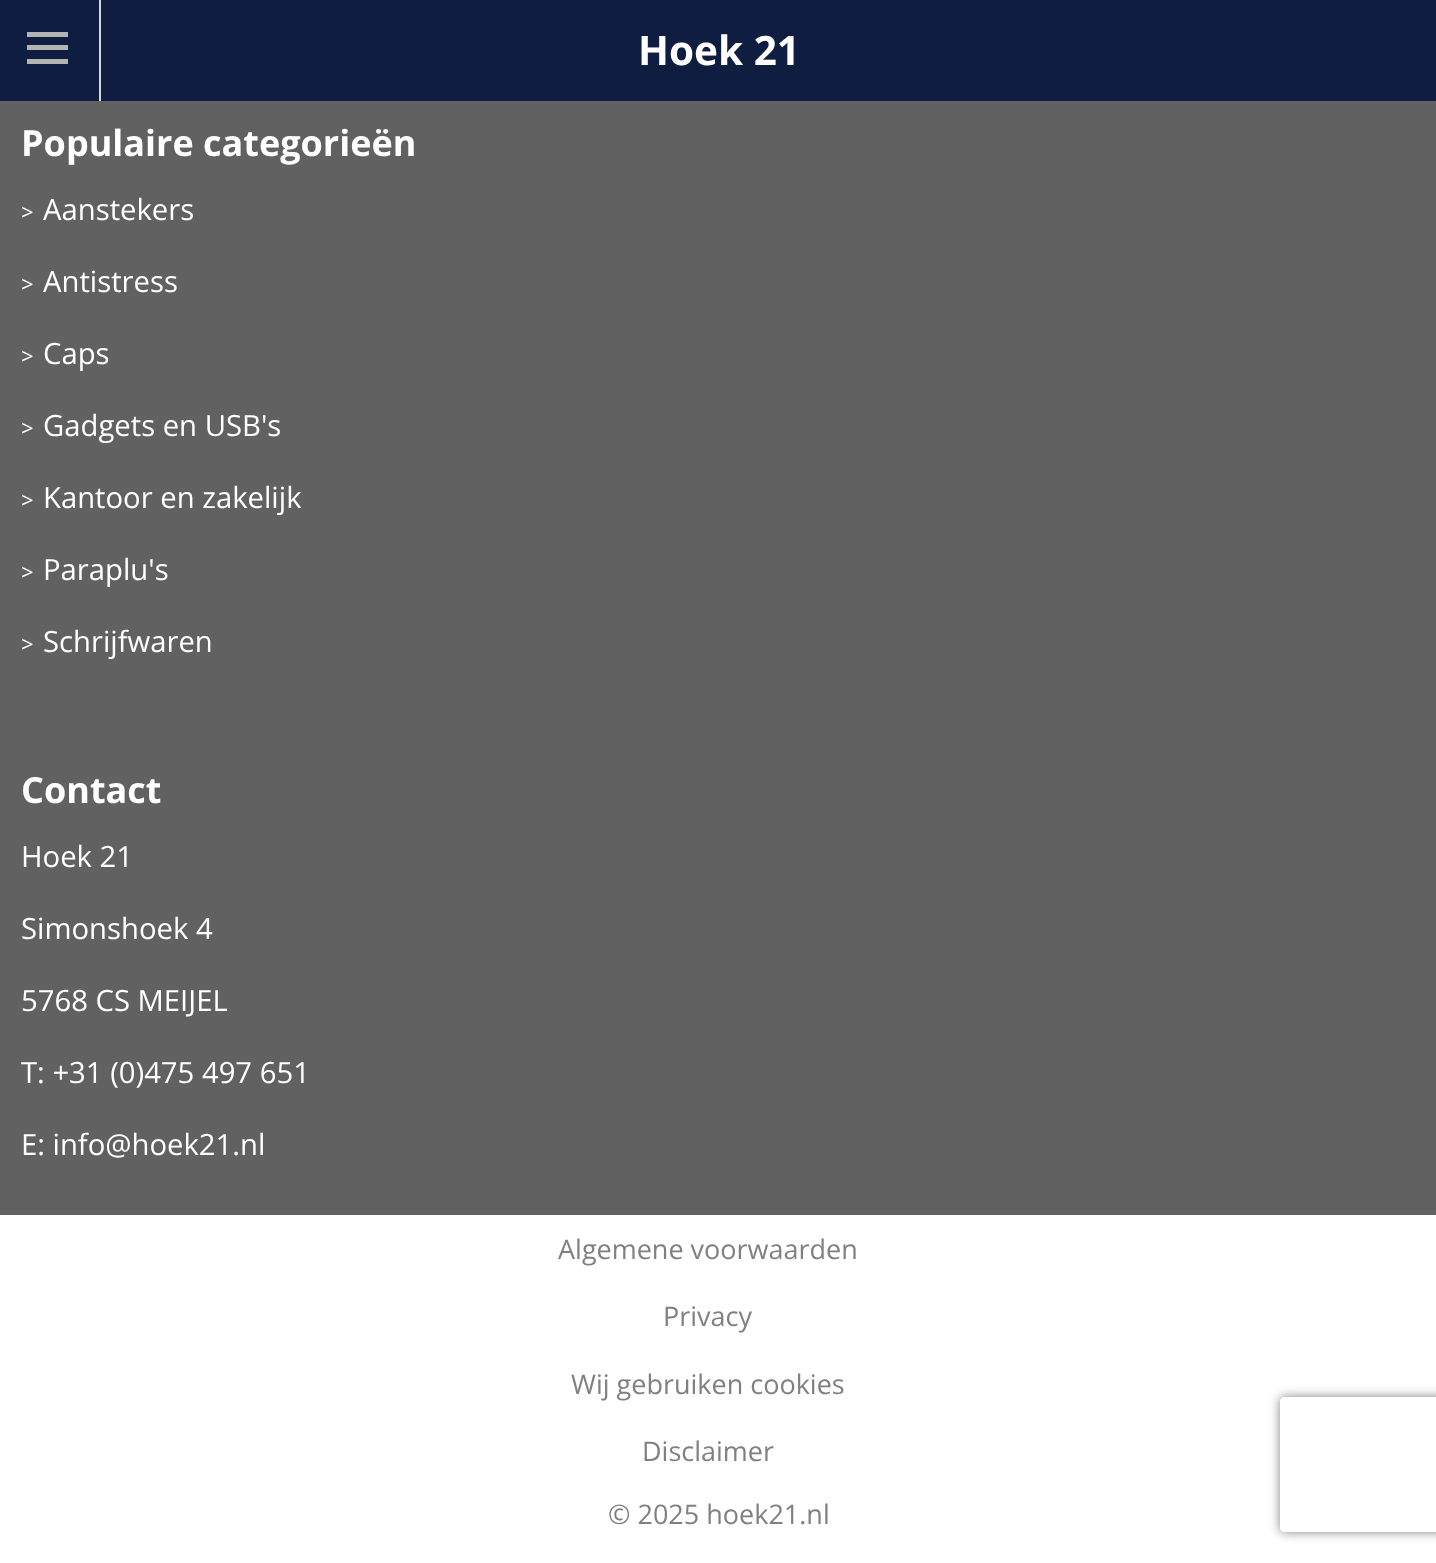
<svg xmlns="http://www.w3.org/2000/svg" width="1436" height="1563">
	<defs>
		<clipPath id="clip1"><path d="M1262 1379H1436V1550H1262ZM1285 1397H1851C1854 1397 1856 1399 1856 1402V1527C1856 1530 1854 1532 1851 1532H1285C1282 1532 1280 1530 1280 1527V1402C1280 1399 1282 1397 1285 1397Z" clip-rule="evenodd" /></clipPath>
	</defs>
	<rect width="100%" height="100%" fill="#616161" />
	<rect x="0" y="0" width="1436" height="101" fill="#0F1D41" />
	<rect x="99" y="0" width="2" height="101" fill="#D6D6D6" />
	<rect x="27" y="59" width="41" height="5" fill="#B3B3B3" />
	<rect x="27" y="45" width="41" height="5" fill="#B3B3B3" />
	<rect x="27" y="32" width="41" height="5" fill="#B3B3B3" />
	<text x="638" y="65" font-family="Open Sans" font-size="40.5" font-weight="700" fill="#FFFFFF">Hoek 21</text>
	<text x="21" y="156" font-family="Open Sans" font-size="36" font-weight="700" fill="#FFFFFF">Populaire categorieën</text>
	<text x="21" y="220" font-family="Open Sans" font-size="22" fill="#FFFFFF">&gt;</text>
	<text x="43" y="220" font-family="Open Sans" font-size="29.25" fill="#FFFFFF">Aanstekers</text>
	<text x="21" y="292" font-family="Open Sans" font-size="22" fill="#FFFFFF">&gt;</text>
	<text x="43" y="292" font-family="Open Sans" font-size="29.25" fill="#FFFFFF">Antistress</text>
	<text x="21" y="364" font-family="Open Sans" font-size="22" fill="#FFFFFF">&gt;</text>
	<text x="43" y="364" font-family="Open Sans" font-size="29.25" fill="#FFFFFF">Caps</text>
	<text x="21" y="436" font-family="Open Sans" font-size="22" fill="#FFFFFF">&gt;</text>
	<text x="43" y="436" font-family="Open Sans" font-size="29.25" fill="#FFFFFF">Gadgets en USB's</text>
	<text x="21" y="508" font-family="Open Sans" font-size="22" fill="#FFFFFF">&gt;</text>
	<text x="43" y="508" font-family="Open Sans" font-size="29.25" fill="#FFFFFF">Kantoor en zakelijk</text>
	<text x="21" y="580" font-family="Open Sans" font-size="22" fill="#FFFFFF">&gt;</text>
	<text x="43" y="580" font-family="Open Sans" font-size="29.25" fill="#FFFFFF">Paraplu's</text>
	<text x="21" y="652" font-family="Open Sans" font-size="22" fill="#FFFFFF">&gt;</text>
	<text x="43" y="652" font-family="Open Sans" font-size="29.25" fill="#FFFFFF">Schrijfwaren</text>
	<text x="21" y="803" font-family="Open Sans" font-size="36" font-weight="700" fill="#FFFFFF">Contact</text>
	<g font-family="Open Sans" font-size="29.25" fill="#FFFFFF">
		<text x="21" y="867">Hoek 21</text>
		<text x="21" y="939">Simonshoek 4</text>
		<text x="21" y="1011">5768 CS MEIJEL</text>
		<text x="21" y="1083">T: +31 (0)475 497 651</text>
		<text x="21" y="1155">E: info@hoek21.nl</text>
	</g>
	<rect x="0" y="1215" width="1436" height="348" fill="#FFFFFF" />
	<g font-family="Open Sans" font-size="27" fill="#808080">
		<text x="558" y="1259">Algemene voorwaarden</text>
		<text x="663" y="1326">Privacy</text>
		<text x="571" y="1394">Wij gebruiken cookies</text>
		<text x="642" y="1461">Disclaimer</text>
		<text x="608" y="1524">© 2025 hoek21.nl</text>
	</g>
	<g clip-path="url(#clip1)">
		<rect x="1280" y="1397" width="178" height="135" rx="5" fill="#808080" filter="blur(5.5px)" />
	</g>
</svg>
